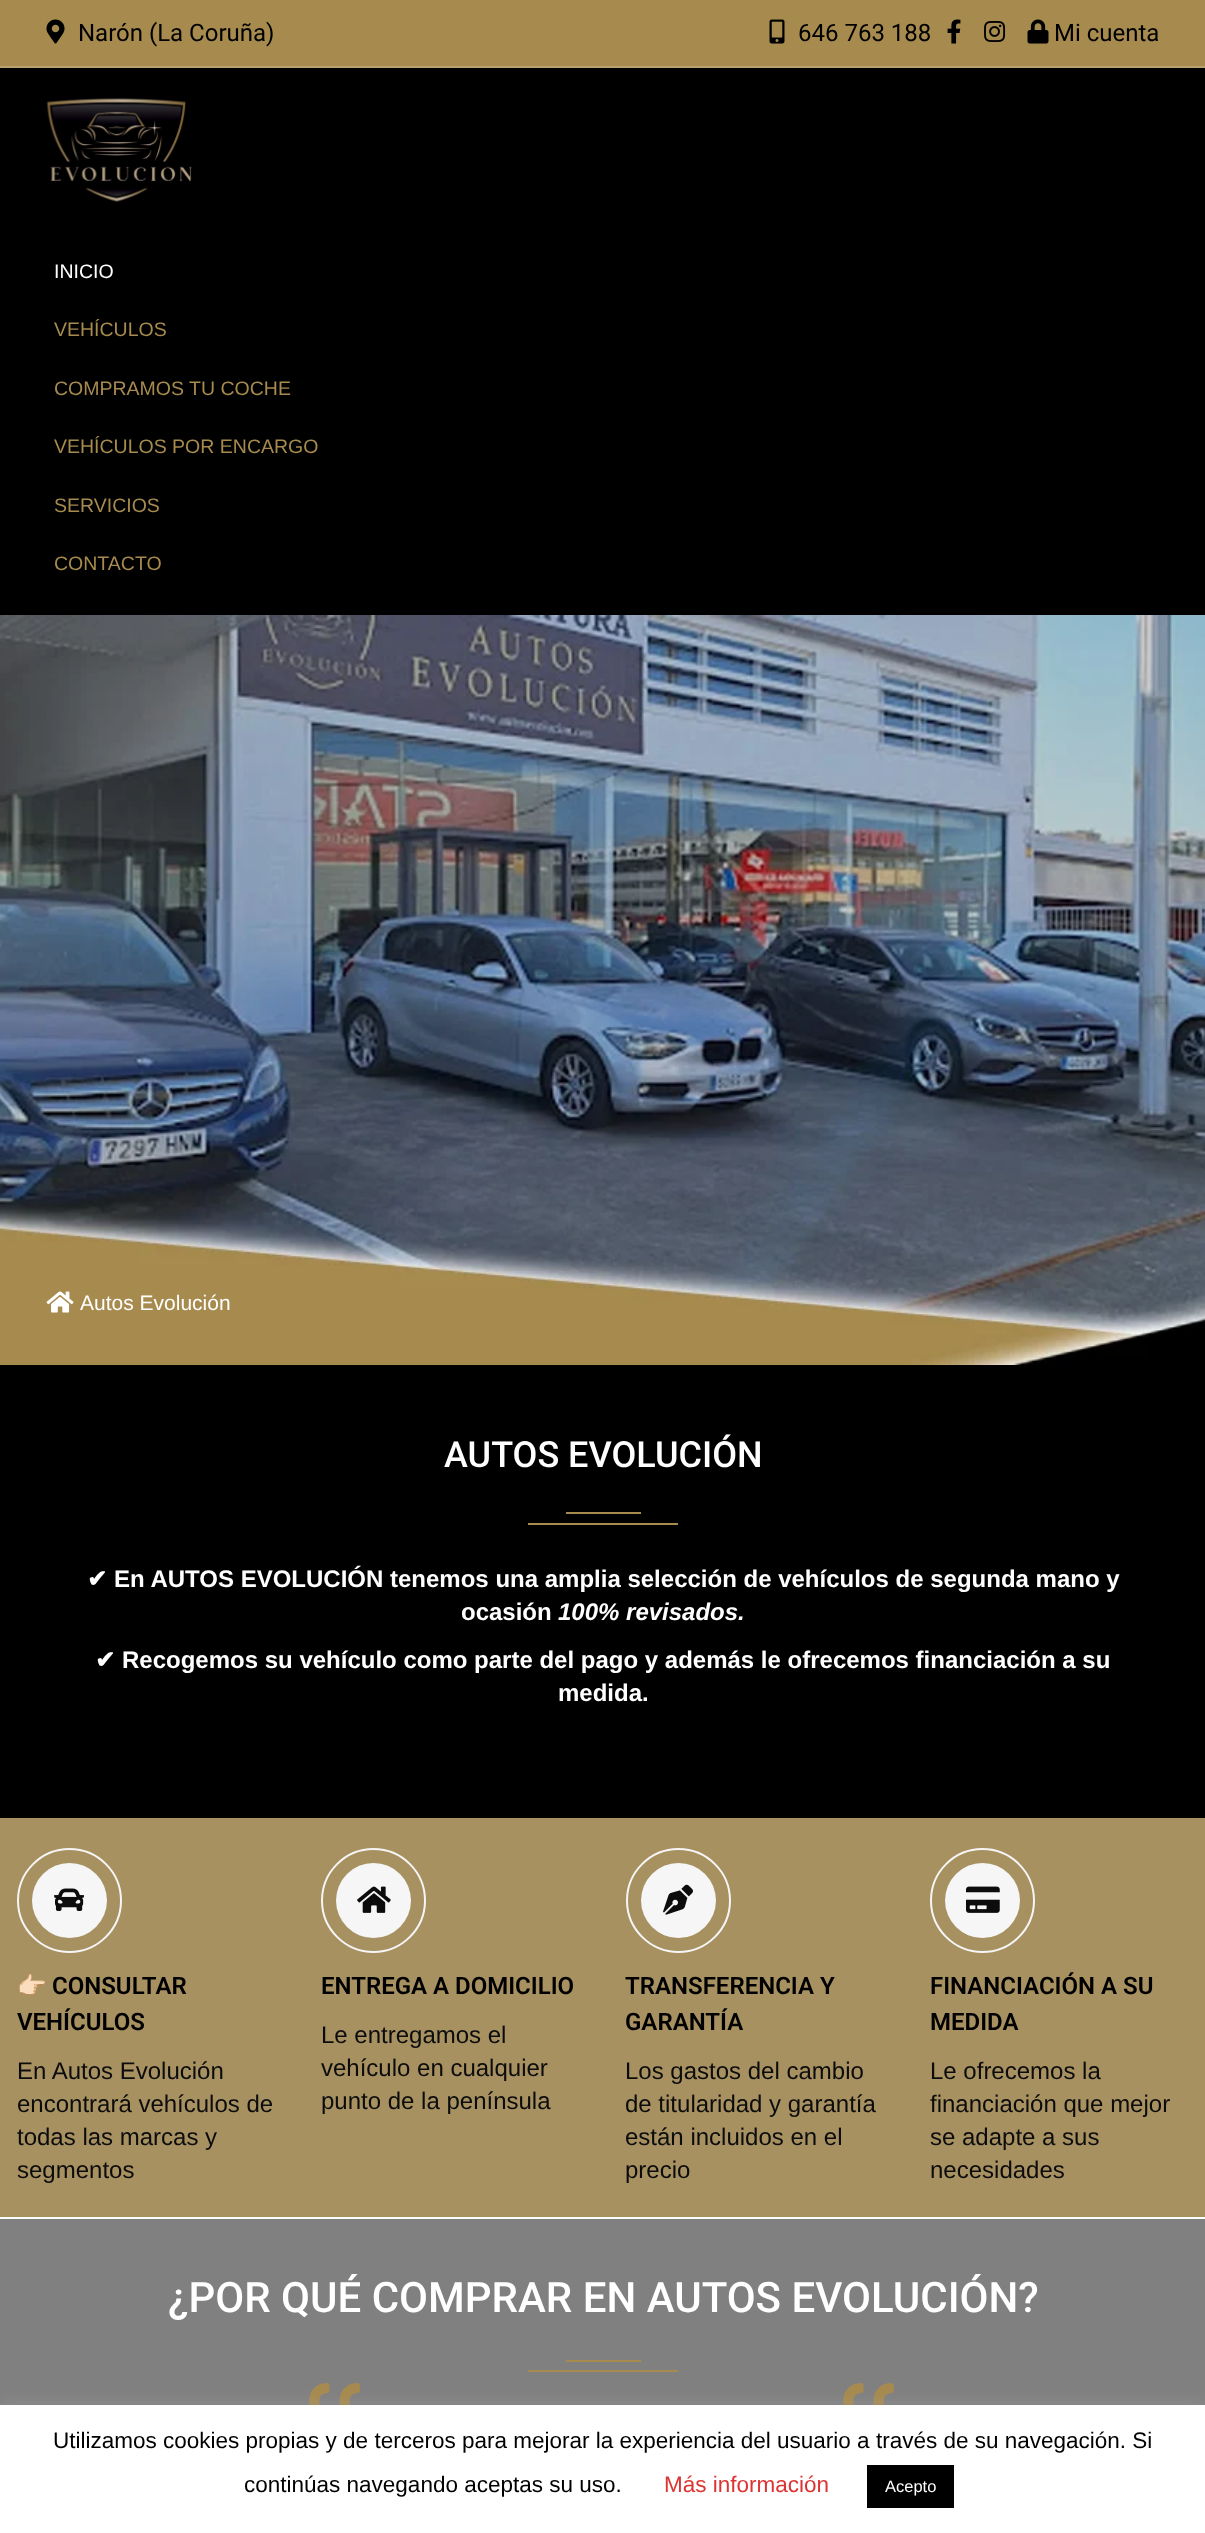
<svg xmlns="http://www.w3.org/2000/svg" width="1205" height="2533">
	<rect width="100%" height="100%" fill="#FFFFFF" />
	<rect x="0" y="68" width="1205" height="547" fill="#000000" />
	<rect x="0" y="0" width="1205" height="66" fill="#A68A4E" />
	<rect x="0" y="66" width="1205" height="2" fill="#B8A171" />
	<image x="46" y="19" width="19" height="25" href="assets/img1.png" />
	<text x="78" y="41" font-family="Roboto" font-size="24" fill="#000000">Narón (La Coruña)</text>
	<image x="769" y="19" width="16" height="25" href="assets/img2.png" />
	<text x="798" y="41" font-family="Roboto" font-size="24" fill="#000000">646 763 188</text>
	<image x="947" y="19" width="14" height="25" href="assets/img3.png" />
	<image x="984" y="21" width="22" height="21" href="assets/img4.png" />
	<image x="1027" y="19" width="22" height="25" href="assets/img5.png" />
	<text x="1054" y="41" font-family="Roboto" font-size="24" fill="#000000">Mi cuenta</text>
	<image x="46" y="98" width="146" height="104" href="assets/img6.png" />
	<text x="54" y="278" font-family="Liberation Sans" font-size="19.5" fill="#FFFFFF">INICIO</text>
	<g font-family="Liberation Sans" font-size="19.5" fill="#A68A4E">
		<text x="54" y="336">VEHÍCULOS</text>
		<text x="54" y="395">COMPRAMOS TU COCHE</text>
		<text x="54" y="453">VEHÍCULOS POR ENCARGO</text>
		<text x="54" y="512">SERVICIOS</text>
		<text x="54" y="570">CONTACTO</text>
	</g>
	<image x="0" y="615" width="1205" height="750" href="assets/img7.png" />
	<image x="46" y="1291" width="28" height="22" href="assets/img8.png" />
	<text x="80" y="1310" font-family="Liberation Sans" font-size="21" fill="#FFFFFF">Autos Evolución</text>
	<rect x="0" y="1365" width="1205" height="453" fill="#000000" />
	<text x="444" y="1467" font-family="Roboto" font-size="36" font-weight="500" fill="#FFFFFF">AUTOS EVOLUCIÓN</text>
	<rect x="566" y="1512" width="75" height="2" fill="#A68A4E" />
	<rect x="528" y="1523" width="150" height="2" fill="#A68A4E" />
	<text x="87" y="1587" font-family="DejaVu Sans" font-size="24" font-weight="700" fill="#FFFFFF">✔︎</text>
	<g font-family="Liberation Sans" font-size="24" font-weight="700" fill="#FFFFFF">
		<text x="114" y="1587">En AUTOS EVOLUCIÓN tenemos una amplia selección de vehículos de segunda mano y</text>
		<text x="461" y="1620">ocasión</text>
	</g>
	<text x="558" y="1620" font-family="Liberation Sans" font-size="24" font-weight="700" font-style="italic" fill="#FFFFFF">100% revisados.</text>
	<text x="95" y="1668" font-family="DejaVu Sans" font-size="24" font-weight="700" fill="#FFFFFF">✔︎</text>
	<g font-family="Liberation Sans" font-size="24" font-weight="700" fill="#FFFFFF">
		<text x="122" y="1668">Recogemos su vehículo como parte del pago y además le ofrecemos financiación a su</text>
		<text x="558" y="1701">medida.</text>
	</g>
	<rect x="0" y="1818" width="1205" height="399" fill="#A79161" />
	<circle cx="69.5" cy="1900.5" r="51.5" fill="none" stroke="#F6F6F6" stroke-width="2" />
	<circle cx="69.5" cy="1900.5" r="37.5" fill="#F6F6F6" />
	<image x="54" y="1888" width="30" height="23" href="assets/img9.png" />
	<text x="17" y="1994" font-family="Noto Color Emoji" font-size="24" font-weight="700" fill="#000000">👉🏻</text>
	<g font-family="Roboto" font-size="24" font-weight="600" fill="#000000">
		<text x="52" y="1994">CONSULTAR</text>
		<text x="17" y="2030">VEHÍCULOS</text>
	</g>
	<g font-family="Liberation Sans" font-size="24" fill="#0C0C0C">
		<text x="17" y="2079">En Autos Evolución</text>
		<text x="17" y="2112">encontrará vehículos de</text>
		<text x="17" y="2145">todas las marcas y</text>
		<text x="17" y="2178">segmentos</text>
	</g>
	<circle cx="373.5" cy="1900.5" r="51.5" fill="none" stroke="#F6F6F6" stroke-width="2" />
	<circle cx="373.5" cy="1900.5" r="37.5" fill="#F6F6F6" />
	<image x="357" y="1886" width="34" height="27" href="assets/img10.png" />
	<text x="321" y="1994" font-family="Roboto" font-size="24" font-weight="600" fill="#000000">ENTREGA A DOMICILIO</text>
	<g font-family="Liberation Sans" font-size="24" fill="#0C0C0C">
		<text x="321" y="2043">Le entregamos el</text>
		<text x="321" y="2076">vehículo en cualquier</text>
		<text x="321" y="2109">punto de la península</text>
	</g>
	<circle cx="678.5" cy="1900.5" r="51.5" fill="none" stroke="#F6F6F6" stroke-width="2" />
	<circle cx="678.5" cy="1900.5" r="37.5" fill="#F6F6F6" />
	<image x="663" y="1884" width="30" height="31" href="assets/img11.png" />
	<g font-family="Roboto" font-size="24" font-weight="600" fill="#000000">
		<text x="625" y="1994">TRANSFERENCIA Y</text>
		<text x="625" y="2030">GARANTÍA</text>
	</g>
	<g font-family="Liberation Sans" font-size="24" fill="#0C0C0C">
		<text x="625" y="2079">Los gastos del cambio</text>
		<text x="625" y="2112">de titularidad y garantía</text>
		<text x="625" y="2145">están incluidos en el</text>
		<text x="625" y="2178">precio</text>
	</g>
	<circle cx="982.5" cy="1900.5" r="51.5" fill="none" stroke="#F6F6F6" stroke-width="2" />
	<circle cx="982.5" cy="1900.5" r="37.5" fill="#F6F6F6" />
	<image x="966" y="1886" width="34" height="27" href="assets/img12.png" />
	<g font-family="Roboto" font-size="24" font-weight="600" fill="#000000">
		<text x="930" y="1994">FINANCIACIÓN A SU</text>
		<text x="930" y="2030">MEDIDA</text>
	</g>
	<g font-family="Liberation Sans" font-size="24" fill="#0C0C0C">
		<text x="930" y="2079">Le ofrecemos la</text>
		<text x="930" y="2112">financiación que mejor</text>
		<text x="930" y="2145">se adapte a sus</text>
		<text x="930" y="2178">necesidades</text>
	</g>
	<rect x="0" y="2219" width="1205" height="186" fill="#808080" />
	<text x="168" y="2312" font-family="Roboto" font-size="42" font-weight="500" fill="#FFFFFF">¿POR QUÉ COMPRAR EN AUTOS EVOLUCIÓN?</text>
	<rect x="566" y="2360" width="75" height="2" fill="#A68A4E" />
	<rect x="528" y="2370" width="150" height="2" fill="#A68A4E" />
	<image x="309" y="2383" width="51" height="22" href="assets/img13.png" />
	<image x="843" y="2383" width="51" height="22" href="assets/img13.png" />
	<rect x="0" y="2403" width="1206" height="129" fill="#ACABAB" fill-opacity="0.3" filter="blur(7.5px)" />
	<rect x="0" y="2405" width="1205" height="128" fill="#FFFFFF" />
	<g font-family="Liberation Sans" font-size="22.5" fill="#000000">
		<text x="53" y="2448">Utilizamos cookies propias y de terceros para mejorar la experiencia del usuario a través de su navegación. Si</text>
		<text x="244" y="2492">continúas navegando aceptas su uso. </text>
	</g>
	<text x="664" y="2492" font-family="Liberation Sans" font-size="22.5" fill="#DD3333">Más información</text>
	<rect x="867" y="2465" width="87" height="43" fill="#000000" />
	<text x="885" y="2492" font-family="Liberation Sans" font-size="16.5" fill="#FFFFFF">Acepto</text>
</svg>
